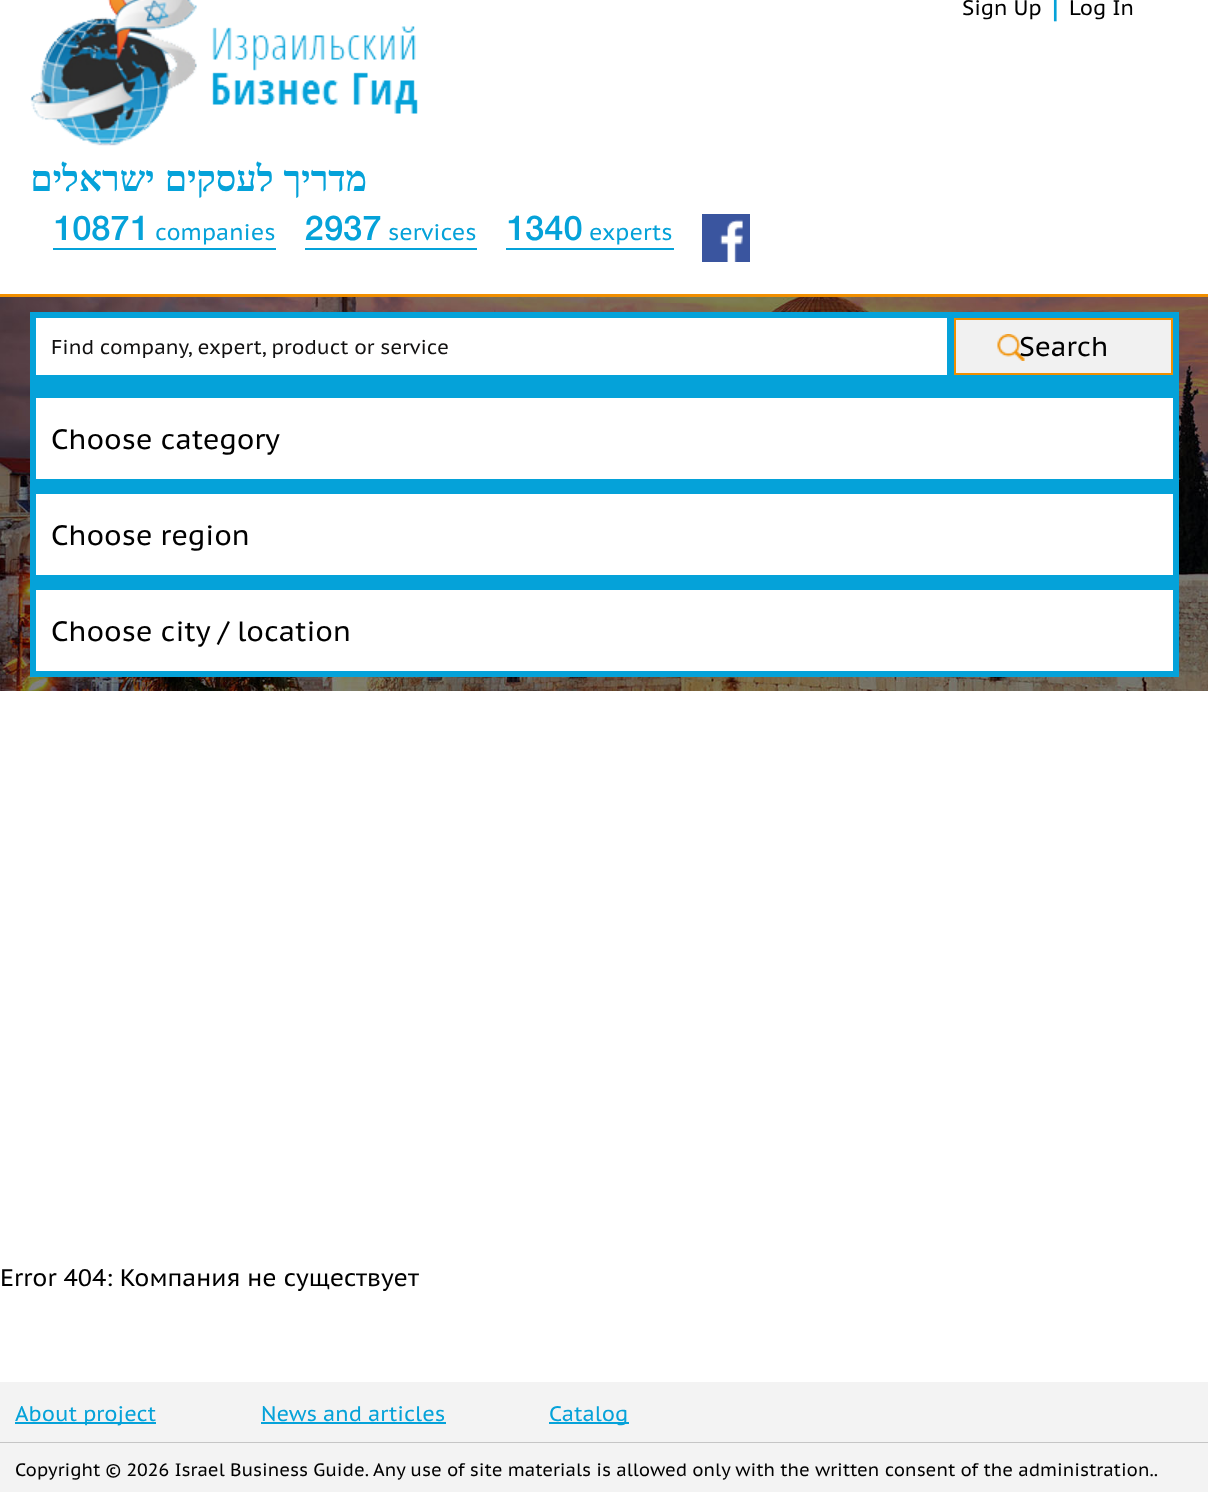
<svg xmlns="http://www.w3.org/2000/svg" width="1208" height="1492">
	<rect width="100%" height="100%" fill="#FFFFFF" />
	<rect x="0" y="294" width="1208" height="3" fill="#F18F00" />
	<image x="30" y="0" width="388" height="146" href="assets/img1.png" />
	<text x="962" y="15" font-family="PT Sans Caption" font-size="21" fill="#000000">Sign Up</text>
	<text x="1051" y="17" font-family="PT Sans Caption" font-size="33" fill="#05A2D9">|</text>
	<text x="1069" y="15" font-family="PT Sans Caption" font-size="21" fill="#000000">Log In</text>
	<text x="367" y="191" word-spacing="1" font-family="Liberation Serif" font-size="36" font-weight="700" direction="rtl" fill="#05A2D9">מדריך לעסקים ישראלים</text>
	<rect x="53" y="248" width="223" height="2" fill="#05A2D9" />
	<text x="53" y="240" font-family="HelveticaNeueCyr" font-size="34.5" font-weight="500" fill="#05A2D9">10871</text>
	<text x="155" y="240" font-family="PT Sans Caption" font-size="22.5" fill="#05A2D9">companies</text>
	<rect x="305" y="248" width="172" height="2" fill="#05A2D9" />
	<text x="305" y="240" font-family="HelveticaNeueCyr" font-size="34.5" font-weight="500" fill="#05A2D9">2937</text>
	<text x="388" y="240" font-family="PT Sans Caption" font-size="22.5" fill="#05A2D9">services</text>
	<rect x="506" y="248" width="168" height="2" fill="#05A2D9" />
	<text x="506" y="240" font-family="HelveticaNeueCyr" font-size="34.5" font-weight="500" fill="#05A2D9">1340</text>
	<text x="589" y="240" font-family="PT Sans Caption" font-size="22.5" fill="#05A2D9">experts</text>
	<image x="702" y="214" width="48" height="48" href="assets/img2.png" />
	<image x="0" y="297" width="1208" height="394" href="assets/img3.png" />
	<rect x="30" y="312" width="1149" height="365" fill="#05A2D9" />
	<rect x="36" y="318" width="911" height="57" fill="#FFFFFF" />
	<text x="51" y="354" font-family="PT Sans Caption" font-size="20" fill="#121111">Find company, expert, product or service</text>
	<rect x="956" y="320" width="215" height="53" fill="#F1F1F1" />
	<image x="997" y="334" width="28" height="27" href="assets/img4.png" />
	<rect x="955" y="319" width="217" height="55" fill="none" stroke="#F18F00" stroke-width="2" />
	<text x="1019" y="356" font-family="PT Sans Caption" font-size="27" fill="#000000">Search</text>
	<rect x="36" y="398" width="1137" height="81" fill="#FFFFFF" />
	<text x="51" y="449" font-family="PT Sans Caption" font-size="28" fill="#000000">Choose category</text>
	<rect x="36" y="494" width="1137" height="81" fill="#FFFFFF" />
	<text x="51" y="545" font-family="PT Sans Caption" font-size="28" fill="#000000">Choose region</text>
	<rect x="36" y="590" width="1137" height="81" fill="#FFFFFF" />
	<text x="51" y="641" font-family="PT Sans Caption" font-size="28" fill="#000000">Choose city / location</text>
	<text x="0" y="1286" font-family="PT Sans Caption" font-size="24" fill="#000000">Error 404: Компания не существует</text>
	<rect x="0" y="1382" width="1208" height="60" fill="#F3F3F3" />
	<rect x="0" y="1442" width="1208" height="1" fill="#C5C5C5" />
	<rect x="15" y="1422" width="141" height="2" fill="#05A2D9" />
	<g font-family="PT Sans Caption" font-size="21" fill="#05A2D9">
		<text x="15" y="1421">About project</text>
		<text x="261" y="1421">News and articles</text>
	</g>
	<rect x="261" y="1422" width="185" height="2" fill="#05A2D9" />
	<rect x="549" y="1422" width="80" height="2" fill="#05A2D9" />
	<text x="549" y="1421" font-family="PT Sans Caption" font-size="21" fill="#05A2D9">Catalog</text>
	<rect x="0" y="1443" width="1208" height="49" fill="#F3F3F3" />
	<text x="15" y="1476" font-family="PT Sans Caption" font-size="18" fill="#000000">Copyright © 2026 Israel Business Guide. Any use of site materials is allowed only with the written consent of the administration..</text>
</svg>
